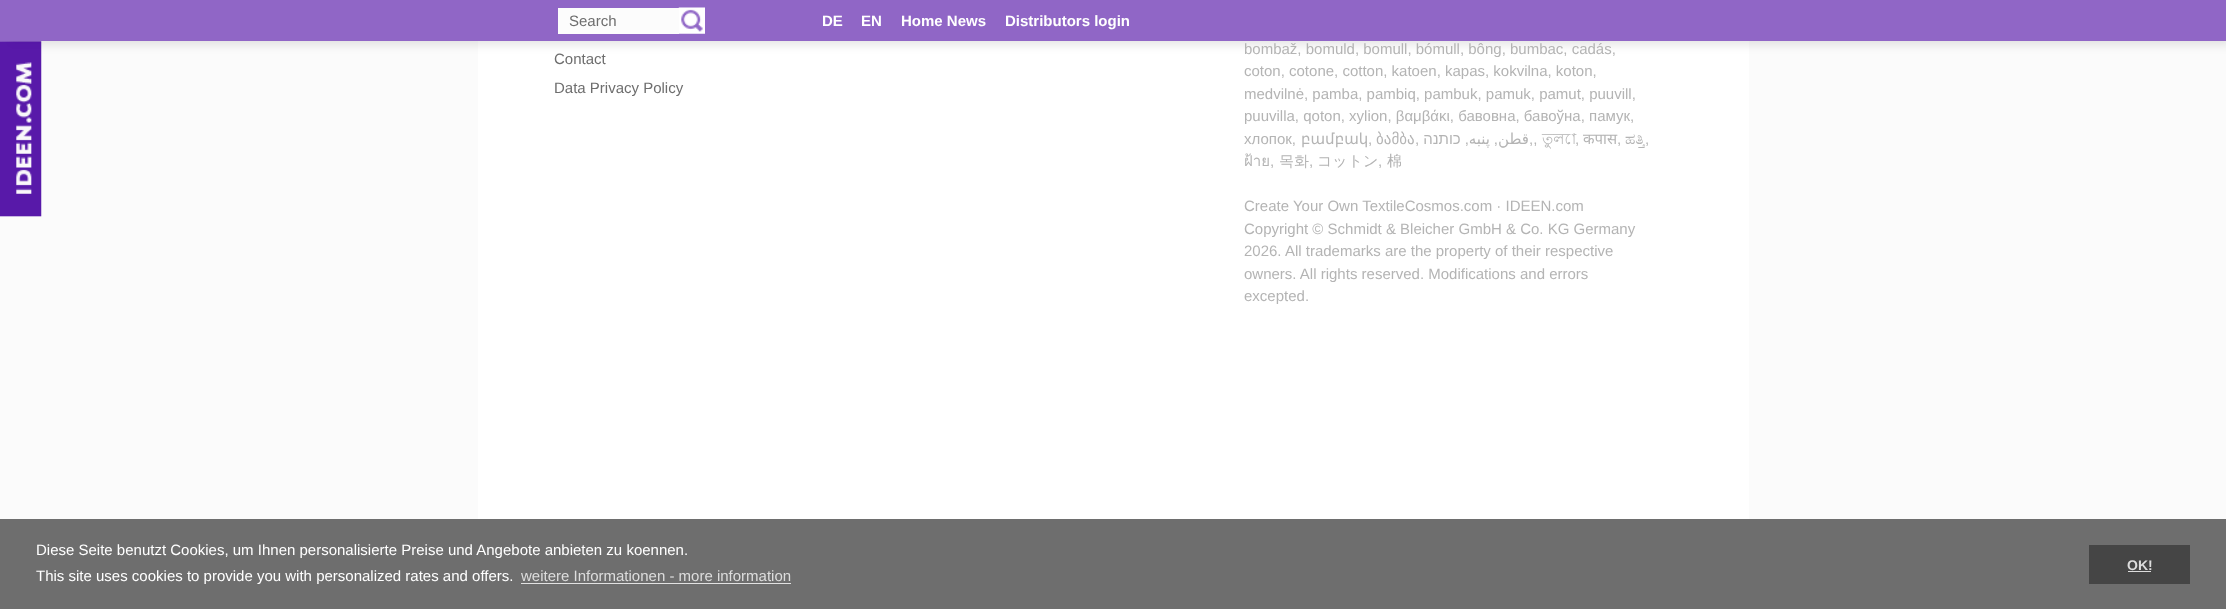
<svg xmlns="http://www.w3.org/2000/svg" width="2226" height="609">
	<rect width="100%" height="100%" fill="#FBFBFB" />
	<rect x="478" y="41" width="1271" height="478" fill="#FFFFFF" />
	<rect x="9" y="9" width="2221" height="36" fill="#000000" fill-opacity="0.1" filter="blur(5px)" />
	<rect x="0" y="0" width="2226" height="41" fill="#9066C6" />
	<rect x="558" y="8" width="121" height="26" fill="#FCFCFC" />
	<text x="569" y="26" font-family="Liberation Sans" font-size="15" fill="#6E6E6E">Search</text>
	<image x="678" y="7" width="27" height="27" href="assets/img1.png" />
	<g font-family="Liberation Sans" font-size="15" font-weight="700" fill="#FFFFFF">
		<text x="822" y="26">DE</text>
		<text x="861" y="26">EN</text>
		<text x="901" y="26">Home News</text>
		<text x="1005" y="26">Distributors login</text>
	</g>
	<image x="0" y="41" width="42" height="176" href="assets/img2.png" />
	<g font-family="Liberation Sans" font-size="15" fill="#6E6E6E">
		<text x="554" y="64">Contact</text>
		<text x="554" y="93">Data Privacy Policy</text>
	</g>
	<g font-family="Liberation Sans" font-size="15" fill="#B4B4B4">
		<text x="1244" y="54">bombaž, bomuld, bomull, bómull, bông, bumbac, cadás,</text>
		<text x="1244" y="76">coton, cotone, cotton, katoen, kapas, kokvilna, koton,</text>
		<text x="1244" y="99">medvilnė, pamba, pambiq, pambuk, pamuk, pamut, puuvill,</text>
		<text x="1244" y="121">puuvilla, qoton, xylion, βαμβάκι, бавовна, бавоўна, памук,</text>
		<text x="1244" y="144">хлопок,</text>
	</g>
	<text x="1301" y="144" font-family="DejaVu Sans" font-size="15" fill="#B4B4B4">բամբակ</text>
	<text x="1368" y="144" font-family="Liberation Sans" font-size="15" fill="#B4B4B4">,</text>
	<text x="1376" y="144" font-family="DejaVu Sans" font-size="15" fill="#B4B4B4">ბამბა</text>
	<text x="1415" y="144" font-family="Liberation Sans" font-size="15" fill="#B4B4B4">,</text>
	<text x="1469" y="144" font-family="Liberation Sans" font-size="15" direction="rtl" fill="#B4B4B4">, כותנה</text>
	<text x="1490" y="144" font-family="DejaVu Sans" font-size="15" direction="rtl" fill="#B4B4B4">پنبه</text>
	<text x="1498" y="144" font-family="Liberation Sans" font-size="15" direction="rtl" fill="#B4B4B4">,</text>
	<text x="1529" y="144" font-family="DejaVu Sans" font-size="15" direction="rtl" fill="#B4B4B4">قطن</text>
	<text x="1529" y="144" font-family="Liberation Sans" font-size="15" fill="#B4B4B4">,,</text>
	<text x="1542" y="144" font-family="Lohit Bengali" font-size="15" fill="#B4B4B4">তুলো</text>
	<text x="1575" y="144" font-family="Liberation Sans" font-size="15" fill="#B4B4B4">,</text>
	<text x="1583" y="144" font-family="Noto Sans" font-size="15" fill="#B4B4B4">कपास</text>
	<text x="1617" y="144" font-family="Liberation Sans" font-size="15" fill="#B4B4B4">,</text>
	<text x="1625" y="144" font-family="FreeSerif" font-size="15" fill="#B4B4B4">ಹತ್ತಿ</text>
	<text x="1645" y="144" font-family="Liberation Sans" font-size="15" fill="#B4B4B4">,</text>
	<text x="1244" y="166" font-family="Loma" font-size="15" fill="#B4B4B4">ฝ้าย</text>
	<text x="1270" y="166" font-family="Liberation Sans" font-size="15" fill="#B4B4B4">,</text>
	<text x="1279" y="166" font-family="WenQuanYi Zen Hei" font-size="15" font-weight="500" fill="#B4B4B4">목화</text>
	<text x="1309" y="166" font-family="Liberation Sans" font-size="15" fill="#B4B4B4">,</text>
	<text x="1317" y="166" font-family="WenQuanYi Zen Hei" font-size="15" font-weight="500" fill="#B4B4B4">コットン</text>
	<text x="1378" y="166" font-family="Liberation Sans" font-size="15" fill="#B4B4B4">,</text>
	<text x="1387" y="166" font-family="WenQuanYi Zen Hei" font-size="15" font-weight="500" fill="#B4B4B4">棉</text>
	<g font-family="Liberation Sans" font-size="15" fill="#B4B4B4">
		<text x="1244" y="211">Create Your Own TextileCosmos.com · IDEEN.com</text>
		<text x="1244" y="234">Copyright © Schmidt &amp; Bleicher GmbH &amp; Co. KG Germany</text>
		<text x="1244" y="256">2026. All trademarks are the property of their respective</text>
		<text x="1244" y="279">owners. All rights reserved. Modifications and errors</text>
		<text x="1244" y="301">excepted.</text>
	</g>
	<rect x="0" y="519" width="2226" height="90" fill="#6E6E6E" />
	<g font-family="Liberation Sans" font-size="15" fill="#FFFFFF">
		<text x="36" y="555">Diese Seite benutzt Cookies, um Ihnen personalisierte Preise und Angebote anbieten zu koennen.</text>
		<text x="36" y="581">This site uses cookies to provide you with personalized rates and offers.</text>
	</g>
	<text x="521" y="581" font-family="Liberation Sans" font-size="15" fill="#DDDDDD">weitere Informationen - more information</text>
	<rect x="521" y="583" width="270" height="1" fill="#E2E2E2" />
	<rect x="2089" y="545" width="101" height="39" fill="#454545" />
	<text x="2127" y="570" font-family="Liberation Sans" font-size="14" font-weight="700" fill="#DDDDDD">OK!</text>
	<rect x="2128" y="571" width="23" height="1" fill="#DDDDDD" />
</svg>
